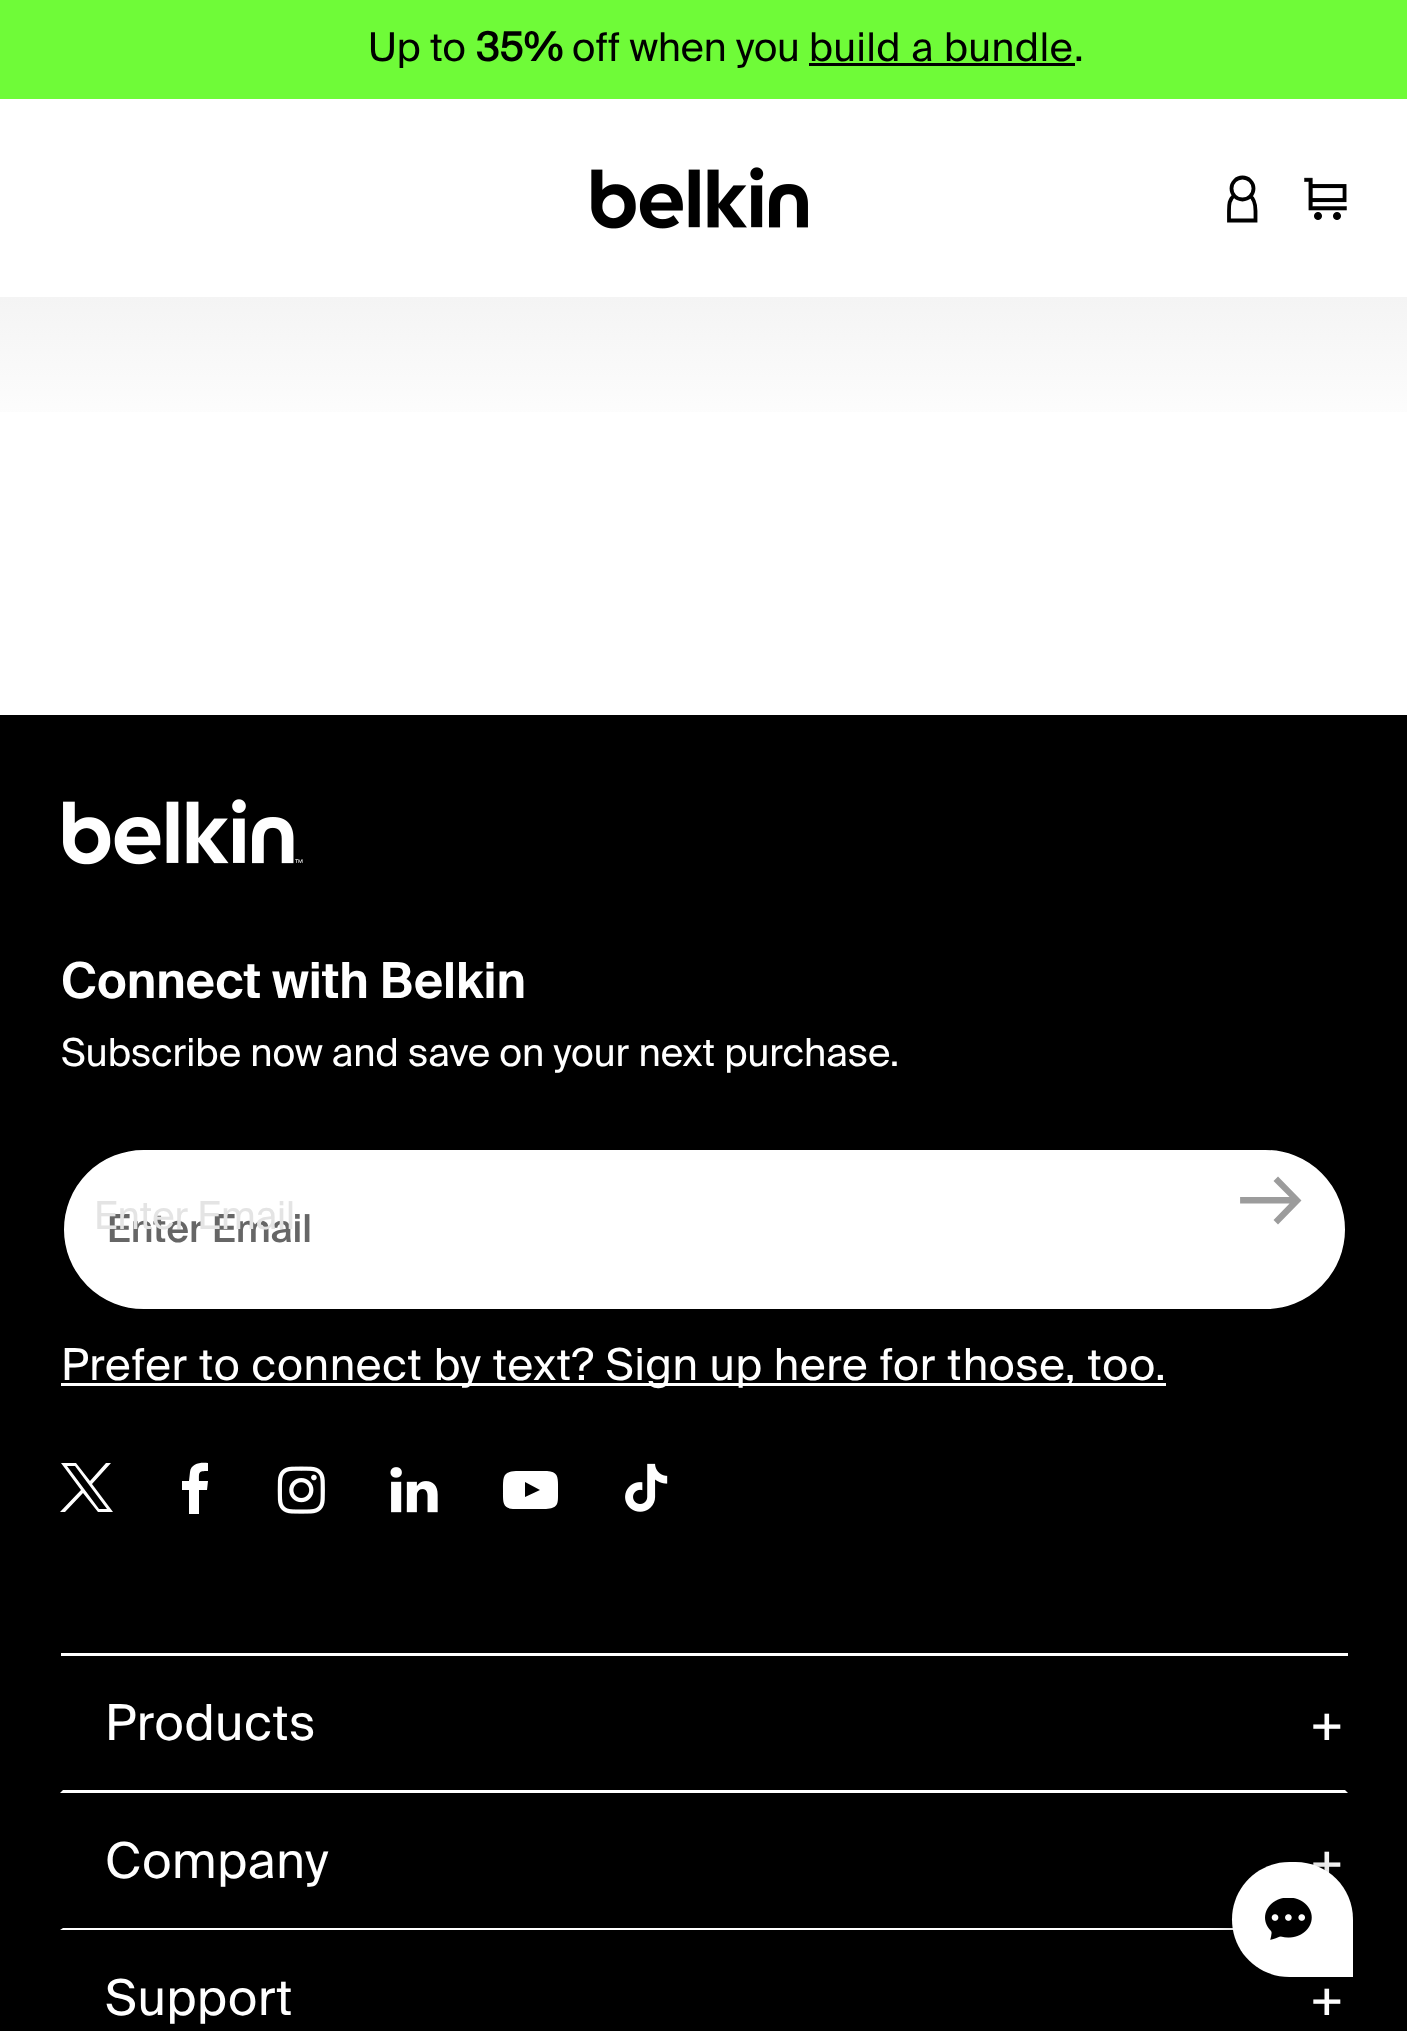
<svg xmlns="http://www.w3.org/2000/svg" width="1407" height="2031">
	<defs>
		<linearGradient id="g1" gradientUnits="userSpaceOnUse" x1="704" y1="297" x2="704" y2="446"><stop offset="0" stop-color="#F4F4F4" /><stop offset="1" stop-color="#FFFFFF" /></linearGradient>
	</defs>
	<rect width="100%" height="100%" fill="#FFFFFF" />
	<rect x="0" y="0" width="1407" height="99" fill="#6FFB38" />
	<text x="368" y="61" font-family="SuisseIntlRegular" font-size="39.5" fill="#000000">Up to</text>
	<text x="476" y="61" font-family="SuisseIntlRegular" font-size="39.5" font-weight="700" fill="#000000">35%</text>
	<text x="572" y="61" font-family="SuisseIntlRegular" font-size="39.5" fill="#000000">off when you</text>
	<text x="809" y="61" font-family="SuisseIntlRegular" font-size="39.5" letter-spacing="0.7" fill="#000000">build a bundle</text>
	<rect x="809" y="63" width="266" height="3" fill="#000000" />
	<text x="1074" y="61" font-family="SuisseIntlRegular" font-size="39.5" fill="#000000">.</text>
	<image x="591" y="167" width="217" height="62" href="assets/img1.png" />
	<path d="M1246 220.5H1229V211C1229 205 1229 199 1234.5 195.5M1238.5 220.5H1255.5V211C1255.5 205 1255 199 1249.5 195.5" fill="none" stroke="#000000" stroke-width="3.8" />
	<circle cx="1242.5" cy="188.5" r="11" fill="none" stroke="#000000" stroke-width="3.8" />
	<image x="1304" y="177" width="43" height="43" href="assets/img2.png" />
	<rect x="0" y="297" width="1407" height="115" fill="url(#g1)" />
	<rect x="0" y="715" width="1407" height="1316" fill="#000000" />
	<image x="63" y="799" width="240" height="66" href="assets/img3.png" />
	<text x="61" y="998" font-family="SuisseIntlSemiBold" font-size="49.5" font-weight="600" fill="#FFFFFF">Connect with Belkin</text>
	<text x="61" y="1066" font-family="SuisseIntlRegular" font-size="38.5" fill="#FFFFFF">Subscribe now and save on your next purchase.</text>
	<rect x="62.5" y="1148.5" width="1284" height="162" rx="81" fill="#FFFFFF" stroke="#000000" stroke-width="3" />
	<text x="107" y="1242" font-family="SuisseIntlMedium" font-size="38.5" font-weight="500" fill="#666666">Enter Email</text>
	<text x="94" y="1229" font-family="SuisseIntlRegular" font-size="38.5" fill="#E4E4E4">Enter Email</text>
	<path d="M1278 1178L1275 1181L1293 1199H1242V1202H1293L1275 1220L1278 1222L1299 1200Z" fill="#9C9C9C" />
	<path d="M1278 1178.5L1275.5 1181L1293 1198.5H1241.5V1202H1293L1275.5 1220L1278 1222.5L1299.5 1200.5Z" fill="none" stroke="#9C9C9C" stroke-width="2.8" />
	<rect x="61" y="1383" width="1105" height="3" fill="#FFFFFF" />
	<text x="61" y="1380" font-family="SuisseIntlRegular" font-size="44" letter-spacing="0.7" fill="#FFFFFF">Prefer to connect by text? Sign up here for those, too.</text>
	<path d="M61 1463L81 1490L60 1512H65L83 1493L98 1512H113L92 1484L111 1463H106L90 1481L76 1463ZM67 1466H75L107 1509H99Z" fill="#FFFFFF" />
	<path d="M208 1463V1471C198 1471 199 1472 199 1481H208L207 1490H199V1514H189V1490H182V1481H189L190 1472C191 1463 201 1462 208 1463Z" fill="#FFFFFF" />
	<image x="277" y="1466" width="48" height="48" href="assets/img4.png" />
	<image x="390" y="1467" width="48" height="46" href="assets/img5.png" />
	<path d="M525 1497L540 1490L525 1482ZM531 1471H547C559 1472 558 1478 558 1490C558 1504 559 1508 546 1509H515C502 1509 503 1502 503 1490C503 1476 503 1472 516 1471Z" fill="#FFFFFF" />
	<image x="625" y="1463" width="43" height="49" href="assets/img6.png" />
	<rect x="61" y="1653" width="1287" height="3" fill="#FFFFFF" />
	<path d="M1348 1793H60L63 1790H1345Z" fill="#FFFFFF" />
	<g font-family="SuisseIntlRegular" font-size="49.5" letter-spacing="0.7" fill="#FFFFFF">
		<text x="105" y="1740">Products</text>
		<text x="1310" y="1740">+</text>
	</g>
	<path d="M1348 1930H60L63 1928H1345Z" fill="#FFFFFF" />
	<g font-family="SuisseIntlRegular" font-size="49.5" letter-spacing="0.7" fill="#FFFFFF">
		<text x="105" y="1878">Company</text>
		<text x="1310" y="1878">+</text>
		<text x="105" y="2015">Support</text>
		<text x="1310" y="2015">+</text>
	</g>
	<rect x="1232" y="1862" width="121" height="115" rx="57.5" fill="#000000" fill-opacity="0.25" filter="blur(16.5px)" />
	<path d="M1289.5 1862H1295.5C1327.5 1862 1353 1887.5 1353 1919.5V1977H1289.5C1257.5 1977 1232 1951.5 1232 1919.5C1232 1887.5 1257.5 1862 1289.5 1862Z" fill="#FFFFFF" />
	<image x="1265" y="1898" width="47" height="42" href="assets/img7.png" />
</svg>
